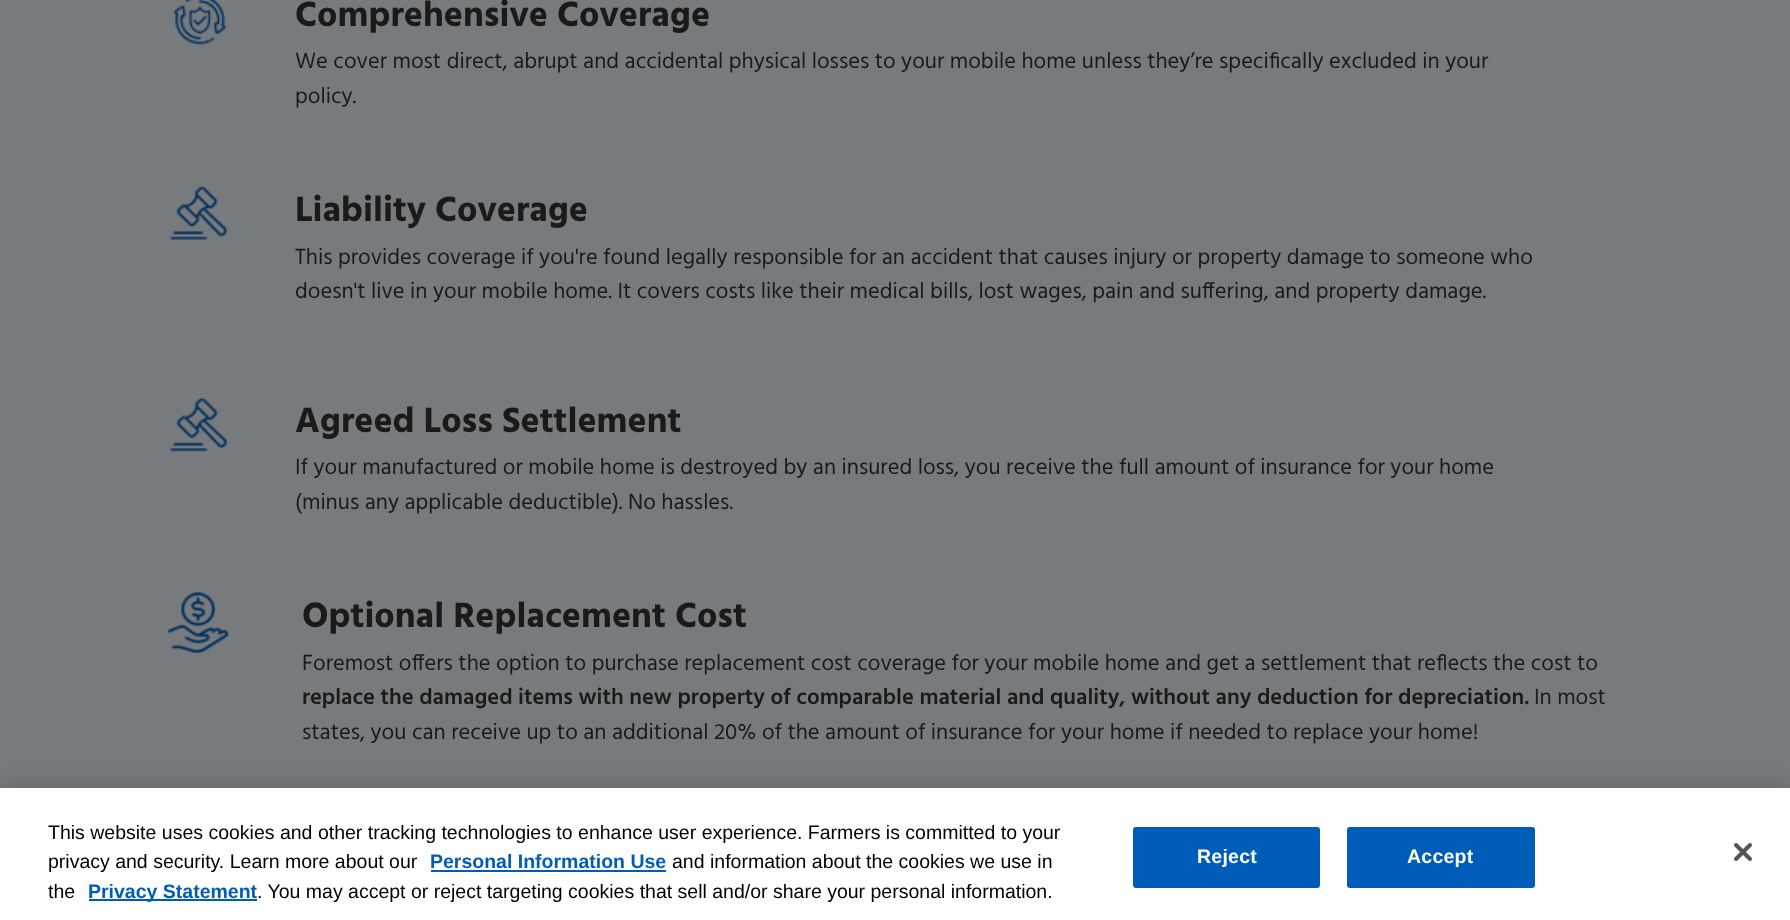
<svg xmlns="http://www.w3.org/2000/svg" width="1790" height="920">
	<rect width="100%" height="100%" fill="#777B7E" />
	<image x="173" y="0" width="54" height="46" href="assets/img1.png" />
	<text x="295" y="26" font-family="Hind" font-size="36" font-weight="700" fill="#1A1A1A">Comprehensive Coverage</text>
	<g font-family="Hind" font-size="22.5" fill="#1A1A1A">
		<text x="295" y="68">We cover most direct, abrupt and accidental physical losses to your mobile home unless they’re specifically excluded in your</text>
		<text x="295" y="103">policy.</text>
	</g>
	<image x="169" y="186" width="59" height="54" href="assets/img2.png" />
	<text x="295" y="221" font-family="Hind" font-size="36" font-weight="700" fill="#1A1A1A">Liability Coverage</text>
	<g font-family="Hind" font-size="22.5" fill="#1A1A1A">
		<text x="295" y="264">This provides coverage if you're found legally responsible for an accident that causes injury or property damage to someone who</text>
		<text x="295" y="298">doesn't live in your mobile home. It covers costs like their medical bills, lost wages, pain and suffering, and property damage.</text>
	</g>
	<image x="169" y="397" width="59" height="55" href="assets/img3.png" />
	<text x="295" y="432" font-family="Hind" font-size="36" font-weight="700" fill="#1A1A1A">Agreed Loss Settlement</text>
	<g font-family="Hind" font-size="22.5" fill="#1A1A1A">
		<text x="295" y="474">If your manufactured or mobile home is destroyed by an insured loss, you receive the full amount of insurance for your home</text>
		<text x="295" y="509">(minus any applicable deductible). No hassles.</text>
	</g>
	<image x="168" y="592" width="60" height="61" href="assets/img4.png" />
	<text x="302" y="627" font-family="Hind" font-size="36" font-weight="700" fill="#1A1A1A">Optional Replacement Cost</text>
	<text x="302" y="670" font-family="Hind" font-size="22.5" fill="#1A1A1A">Foremost offers the option to purchase replacement cost coverage for your mobile home and get a settlement that reflects the cost to</text>
	<text x="302" y="704" font-family="Hind" font-size="22.5" font-weight="600" fill="#1A1A1A">replace the damaged items with new property of comparable material and quality, without any deduction for depreciation.</text>
	<g font-family="Hind" font-size="22.5" fill="#1A1A1A">
		<text x="1534" y="704">In most</text>
		<text x="302" y="739">states, you can receive up to an additional 20% of the amount of insurance for your home if needed to replace your home!</text>
	</g>
	<rect x="0" y="788" width="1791" height="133" fill="#000000" fill-opacity="0.2" filter="blur(13.5px)" />
	<rect x="0" y="788" width="1790" height="132" fill="#FFFFFF" />
	<g font-family="Liberation Sans" font-size="19.5" fill="#000000">
		<text x="48" y="839">This website uses cookies and other tracking technologies to enhance user experience. Farmers is committed to your</text>
		<text x="48" y="868">privacy and security. Learn more about our</text>
	</g>
	<text x="430" y="868" font-family="Liberation Sans" font-size="19.5" font-weight="700" fill="#005CB9">Personal Information Use</text>
	<rect x="431" y="870" width="235" height="2" fill="#005CB9" />
	<g font-family="Liberation Sans" font-size="19.5" fill="#000000">
		<text x="672" y="868">and information about the cookies we use in</text>
		<text x="48" y="898">the</text>
	</g>
	<rect x="89" y="899" width="168" height="2" fill="#005CB9" />
	<text x="88" y="898" font-family="Liberation Sans" font-size="19.5" font-weight="700" fill="#005CB9">Privacy Statement</text>
	<text x="257" y="898" font-family="Liberation Sans" font-size="19.5" fill="#000000">. You may accept or reject targeting cookies that sell and/or share your personal information.</text>
	<rect x="1134" y="828" width="185" height="59" rx="2" fill="#005CB9" stroke="#005CB9" stroke-width="2" />
	<text x="1197" y="863" font-family="Liberation Sans" font-size="19.5" font-weight="700" letter-spacing="0.25" fill="#FFFFFF">Reject</text>
	<rect x="1348" y="828" width="186" height="59" rx="2" fill="#005CB9" stroke="#005CB9" stroke-width="2" />
	<text x="1407" y="863" font-family="Liberation Sans" font-size="19.5" font-weight="700" letter-spacing="0.25" fill="#FFFFFF">Accept</text>
	<image x="1734" y="843" width="18" height="18" href="assets/img5.png" />
</svg>
